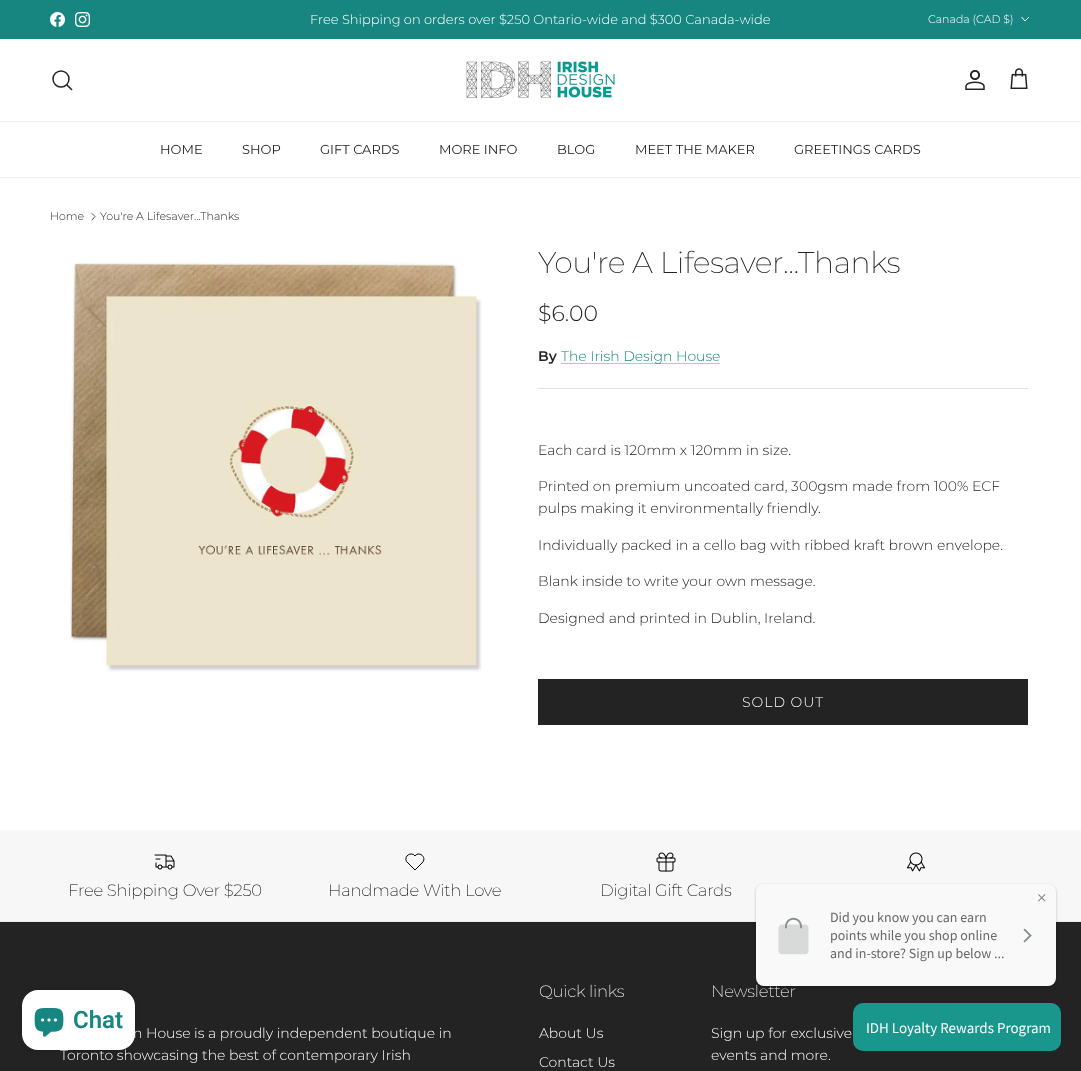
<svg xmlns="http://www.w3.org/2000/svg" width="1081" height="1071">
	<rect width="100%" height="100%" fill="#FFFFFF" />
	<rect x="0" y="0" width="1081" height="39" fill="#178681" />
	<image x="50" y="12" width="15" height="15" href="assets/img1.png" />
	<image x="75" y="12" width="15" height="15" href="assets/img2.png" />
	<text x="310" y="24" font-family="Montserrat" font-size="13" font-weight="300" fill="#FFFFFF">Free Shipping on orders over $250 Ontario-wide and $300 Canada-wide</text>
	<text x="928" y="23" font-family="Montserrat" font-size="11" font-weight="300" fill="#FFFFFF">Canada (CAD $)</text>
	<path d="M1029 17L1025 21L1021.5 17" fill="none" stroke="#FFFFFF" />
	<rect x="0" y="121" width="1081" height="1" fill="#ECECEC" />
	<circle cx="61" cy="79" r="8" fill="none" stroke="#232323" stroke-width="1.5" />
	<path d="M67 85L71.5 89.5" fill="none" stroke="#232323" stroke-width="1.5" stroke-linecap="square" />
	<image x="465" y="60" width="151" height="39" href="assets/img3.png" />
	<image x="965" y="70" width="20" height="20" href="assets/img4.png" />
	<image x="1010" y="68" width="18" height="21" href="assets/img5.png" />
	<rect x="0" y="177" width="1081" height="1" fill="#ECECEC" />
	<g font-family="Montserrat" font-size="13" fill="#232323">
		<text x="160" y="154">HOME</text>
		<text x="242" y="154">SHOP</text>
		<text x="320" y="154">GIFT CARDS</text>
		<text x="439" y="154">MORE INFO</text>
		<text x="557" y="154">BLOG</text>
		<text x="635" y="154">MEET THE MAKER</text>
		<text x="794" y="154">GREETINGS CARDS</text>
	</g>
	<text x="50" y="220" font-family="Montserrat" font-size="11" font-weight="300" fill="#232323">Home</text>
	<path d="M92 220L95 216.5L92 213.5" fill="none" stroke="#232323" stroke-width="0.8" stroke-linecap="round" stroke-linejoin="round" />
	<text x="100" y="220" font-family="Montserrat" font-size="11" font-weight="300" fill="#232323">You're A Lifesaver...Thanks</text>
	<image x="68" y="261" width="414" height="411" href="assets/img6.png" />
	<text x="538" y="273" font-family="Montserrat" font-size="30" font-weight="200" letter-spacing="-0.45" fill="#232323">You're A Lifesaver...Thanks</text>
	<text x="538" y="321" font-family="Montserrat" font-size="22" font-weight="300" fill="#232323">$6.00</text>
	<text x="538" y="361" font-family="Montserrat" font-size="14" font-weight="600" fill="#232323">By</text>
	<rect x="561" y="363" width="159" height="1" fill="#A2CFCD" />
	<text x="561" y="361" font-family="Montserrat" font-size="14" font-weight="300" fill="#178681">The Irish Design House</text>
	<rect x="538" y="388" width="490" height="1" fill="#E0E0E0" />
	<g font-family="Montserrat" font-size="14" font-weight="300" fill="#232323">
		<text x="538" y="455">Each card is 120mm x 120mm in size.</text>
		<text x="538" y="491">Printed on premium uncoated card, 300gsm made from 100% ECF</text>
		<text x="538" y="513">pulps making it environmentally friendly.</text>
		<text x="538" y="550">Individually packed in a cello bag with ribbed kraft brown envelope.</text>
		<text x="538" y="586">Blank inside to write your own message.</text>
		<text x="538" y="623">Designed and printed in Dublin, Ireland.</text>
	</g>
	<rect x="538" y="679" width="490" height="46" fill="#232323" />
	<text x="742" y="707" font-family="Montserrat" font-size="14" font-weight="300" letter-spacing="1" fill="#FFFFFF">SOLD OUT</text>
	<rect x="0" y="830" width="1081" height="91" fill="#F7F7F7" />
	<image x="906" y="852" width="20" height="20" href="assets/img7.png" />
	<image x="154" y="854" width="21" height="16" href="assets/img8.png" />
	<text x="68" y="896" font-family="Montserrat" font-size="16.5" font-weight="200" letter-spacing="-0.25" fill="#000000">Free Shipping Over $250</text>
	<path d="M422.5 862.5L415 870L406.5 861.5C403.5 856 411.5 851 415 856C419 850.5 427.5 857.5 422.5 862.5" fill="none" stroke="#000000" stroke-linecap="round" stroke-linejoin="round" />
	<text x="328" y="896" font-family="Montserrat" font-size="16.5" font-weight="200" letter-spacing="-0.25" fill="#000000">Handmade With Love</text>
	<image x="656" y="852" width="20" height="20" href="assets/img9.png" />
	<text x="600" y="896" font-family="Montserrat" font-size="16.5" font-weight="200" letter-spacing="-0.25" fill="#000000">Digital Gift Cards</text>
	<rect x="0" y="922" width="1081" height="149" fill="#232323" />
	<rect x="0" y="921" width="1081" height="1" fill="#ECECEC" />
	<g font-family="Montserrat" font-size="14" font-weight="300" fill="#FFFFFF">
		<text x="133" y="1038">n House is a proudly independent boutique in</text>
		<text x="60" y="1060">Toronto showcasing the best of contemporary Irish</text>
	</g>
	<text x="539" y="997" font-family="Montserrat" font-size="16.5" font-weight="200" letter-spacing="-0.25" fill="#FFFFFF">Quick links</text>
	<g font-family="Montserrat" font-size="14" font-weight="300" fill="#FFFFFF">
		<text x="539" y="1038">About Us</text>
		<text x="539" y="1067">Contact Us</text>
	</g>
	<text x="711" y="997" font-family="Montserrat" font-size="16.5" font-weight="200" letter-spacing="-0.25" fill="#FFFFFF">Newsletter</text>
	<g font-family="Montserrat" font-size="14" font-weight="300" fill="#FFFFFF">
		<text x="711" y="1038">Sign up for exclusive</text>
		<text x="711" y="1060">events and more.</text>
	</g>
	<image x="754" y="883" width="304" height="106" href="assets/img10.png" />
	<rect x="22" y="990" width="113" height="60" rx="16" fill="#000000" fill-opacity="0.15" filter="blur(2.5px)" />
	<rect x="22" y="990" width="113" height="60" rx="16" fill="#FFFFFF" />
	<image x="34" y="1008" width="30" height="29" href="assets/img11.png" />
	<text x="73" y="1028" font-family="Roboto" font-size="24" font-weight="600" fill="#178681">Chat</text>
	<image x="853" y="1003" width="208" height="48" href="assets/img12.png" />
</svg>
